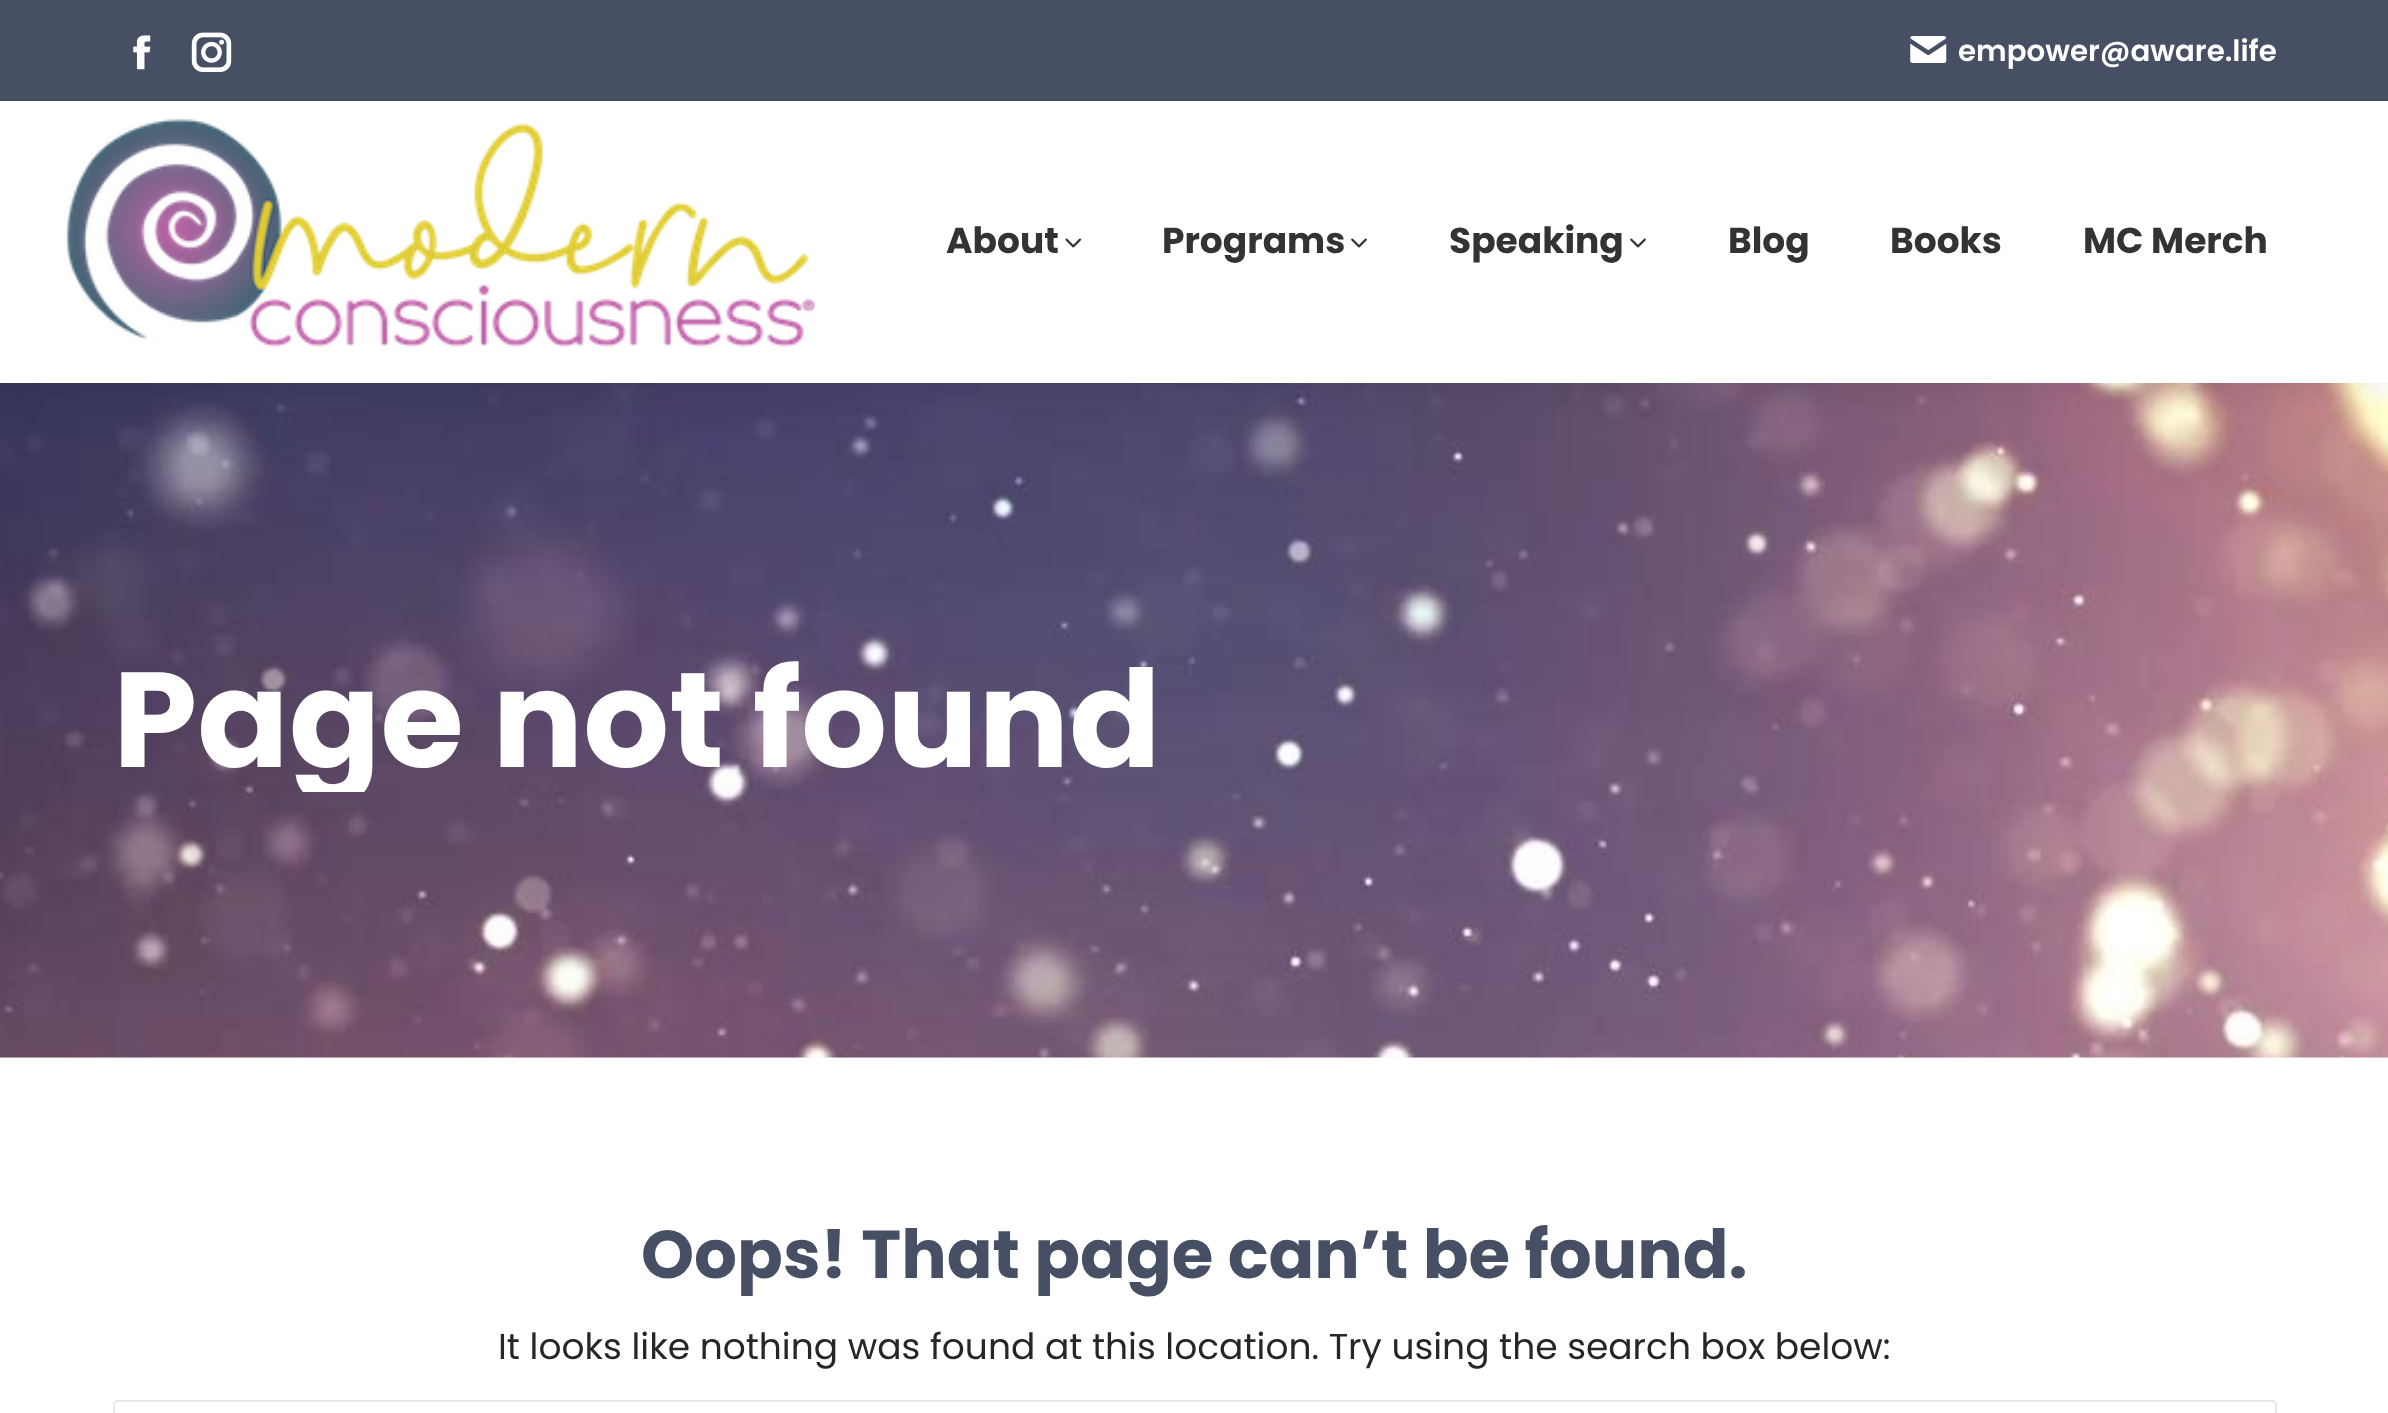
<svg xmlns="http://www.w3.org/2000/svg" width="2388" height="1413">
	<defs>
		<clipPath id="clip1"><rect x="113" y="648" width="1048" height="144" /></clipPath>
	</defs>
	<rect width="100%" height="100%" fill="#FFFFFF" />
	<rect x="0" y="1057" width="2388" height="1" fill="#F6F6F6" />
	<image x="0" y="383" width="2388" height="675" href="assets/img7.png" />
	<rect x="-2" y="-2" width="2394" height="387" fill="#000000" fill-opacity="0.07" filter="blur(17px)" />
	<rect x="0" y="101" width="2388" height="282" fill="#FFFFFF" />
	<rect x="0" y="0" width="2388" height="99" fill="#464F63" />
	<image x="133" y="35" width="18" height="35" href="assets/img1.png" />
	<image x="191" y="32" width="41" height="40" href="assets/img2.png" />
	<image x="1910" y="36" width="37" height="27" href="assets/img3.png" />
	<text x="1958" y="61" font-family="Poppins" font-size="29.25" font-weight="600" fill="#FFFFFF">empower@aware.life</text>
	<rect x="0" y="99" width="2388" height="2" fill="#444C5E" />
	<image x="64" y="118" width="752" height="229" href="assets/img4.png" />
	<text x="946" y="253" font-family="Poppins" font-size="36" font-weight="700" fill="#333333">About</text>
	<image x="1065" y="238" width="17" height="10" href="assets/img5.png" />
	<text x="1162" y="253" font-family="Poppins" font-size="36" font-weight="700" fill="#333333">Programs</text>
	<image x="1351" y="238" width="16" height="10" href="assets/img6.png" />
	<text x="1449" y="253" font-family="Poppins" font-size="36" font-weight="700" fill="#333333">Speaking</text>
	<image x="1630" y="238" width="16" height="10" href="assets/img6.png" />
	<g font-family="Poppins" font-size="36" font-weight="700" fill="#333333">
		<text x="1728" y="253">Blog</text>
		<text x="1890" y="253">Books</text>
		<text x="2083" y="253">MC Merch</text>
	</g>
	<g clip-path="url(#clip1)">
		<text x="113" y="767" font-family="Poppins" font-size="135" font-weight="700" fill="#FFFFFF">Page not found</text>
	</g>
	<text x="641" y="1278" font-family="Poppins" font-size="67.5" font-weight="700" fill="#464F63">Oops! That page can’t be found.</text>
	<text x="498" y="1359" font-family="Poppins" font-size="36" fill="#262626">It looks like nothing was found at this location. Try using the search box below:</text>
	<rect x="114" y="1401" width="2162" height="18" rx="4" fill="none" stroke="#E7E7E7" stroke-width="2" />
</svg>
